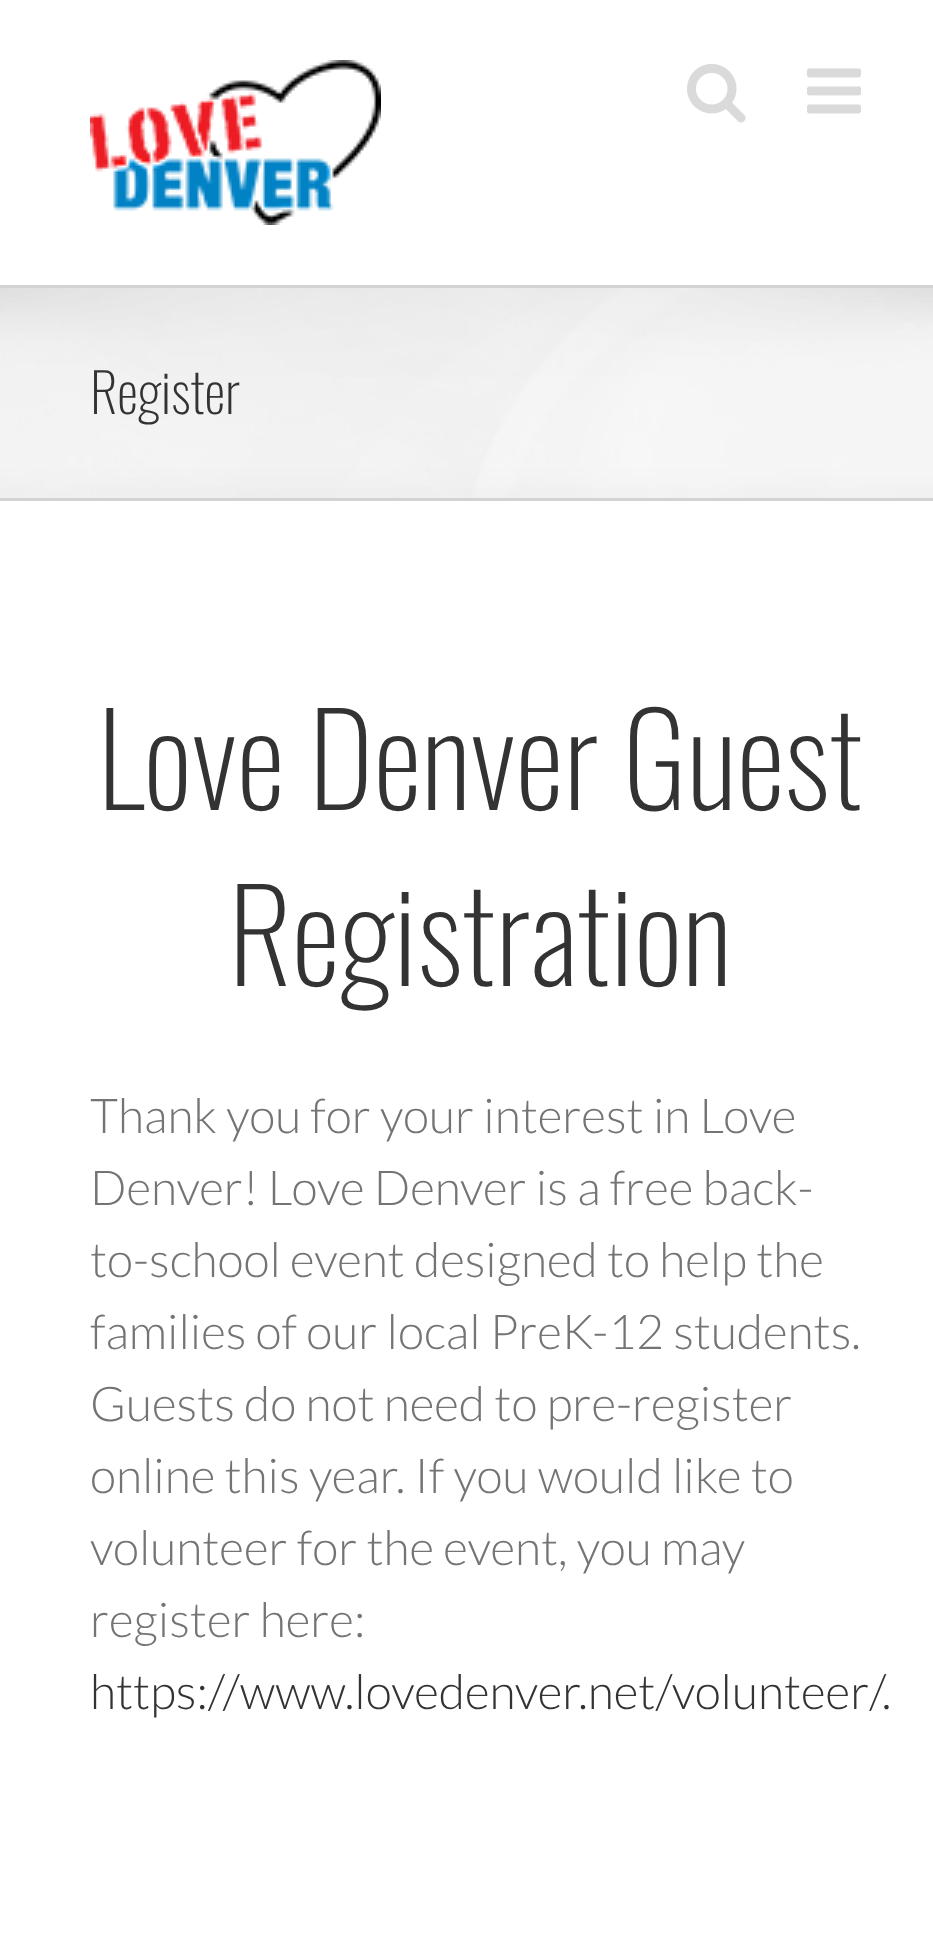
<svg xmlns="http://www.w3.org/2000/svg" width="933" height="1945">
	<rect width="100%" height="100%" fill="#FFFFFF" />
	<image x="90" y="60" width="291" height="165" href="assets/img1.png" />
	<image x="687" y="64" width="59" height="59" href="assets/img2.png" />
	<image x="807" y="68" width="54" height="46" href="assets/img3.png" />
	<rect x="0" y="288" width="933" height="210" fill="#F6F6F6" />
	<image x="0" y="288" width="933" height="210" href="assets/img4.png" />
	<rect x="0" y="285" width="933" height="3" fill="#D2D3D4" />
	<rect x="0" y="498" width="933" height="3" fill="#D2D3D4" />
	<text x="90" y="414" font-family="Oswald" font-size="54" font-weight="200" fill="#333333">Register</text>
	<g font-family="Oswald" font-size="126" font-weight="200" fill="#333333">
		<text x="97" y="810">Love Denver Guest</text>
		<text x="228" y="986">Registration</text>
	</g>
	<g font-family="Lato" font-size="48" font-weight="300" fill="#747474">
		<text x="90" y="1133">Thank you for your interest in Love</text>
		<text x="90" y="1205">Denver! Love Denver is a free back-</text>
		<text x="90" y="1277">to-school event designed to help the</text>
		<text x="90" y="1349">families of our local PreK-12 students.</text>
		<text x="90" y="1421">Guests do not need to pre-register</text>
		<text x="90" y="1493">online this year. If you would like to</text>
		<text x="90" y="1565">volunteer for the event, you may</text>
		<text x="90" y="1637">register here:</text>
	</g>
	<text x="90" y="1709" font-family="Lato" font-size="48" font-weight="300" fill="#333333">https://www.lovedenver.net/volunteer/.</text>
</svg>
